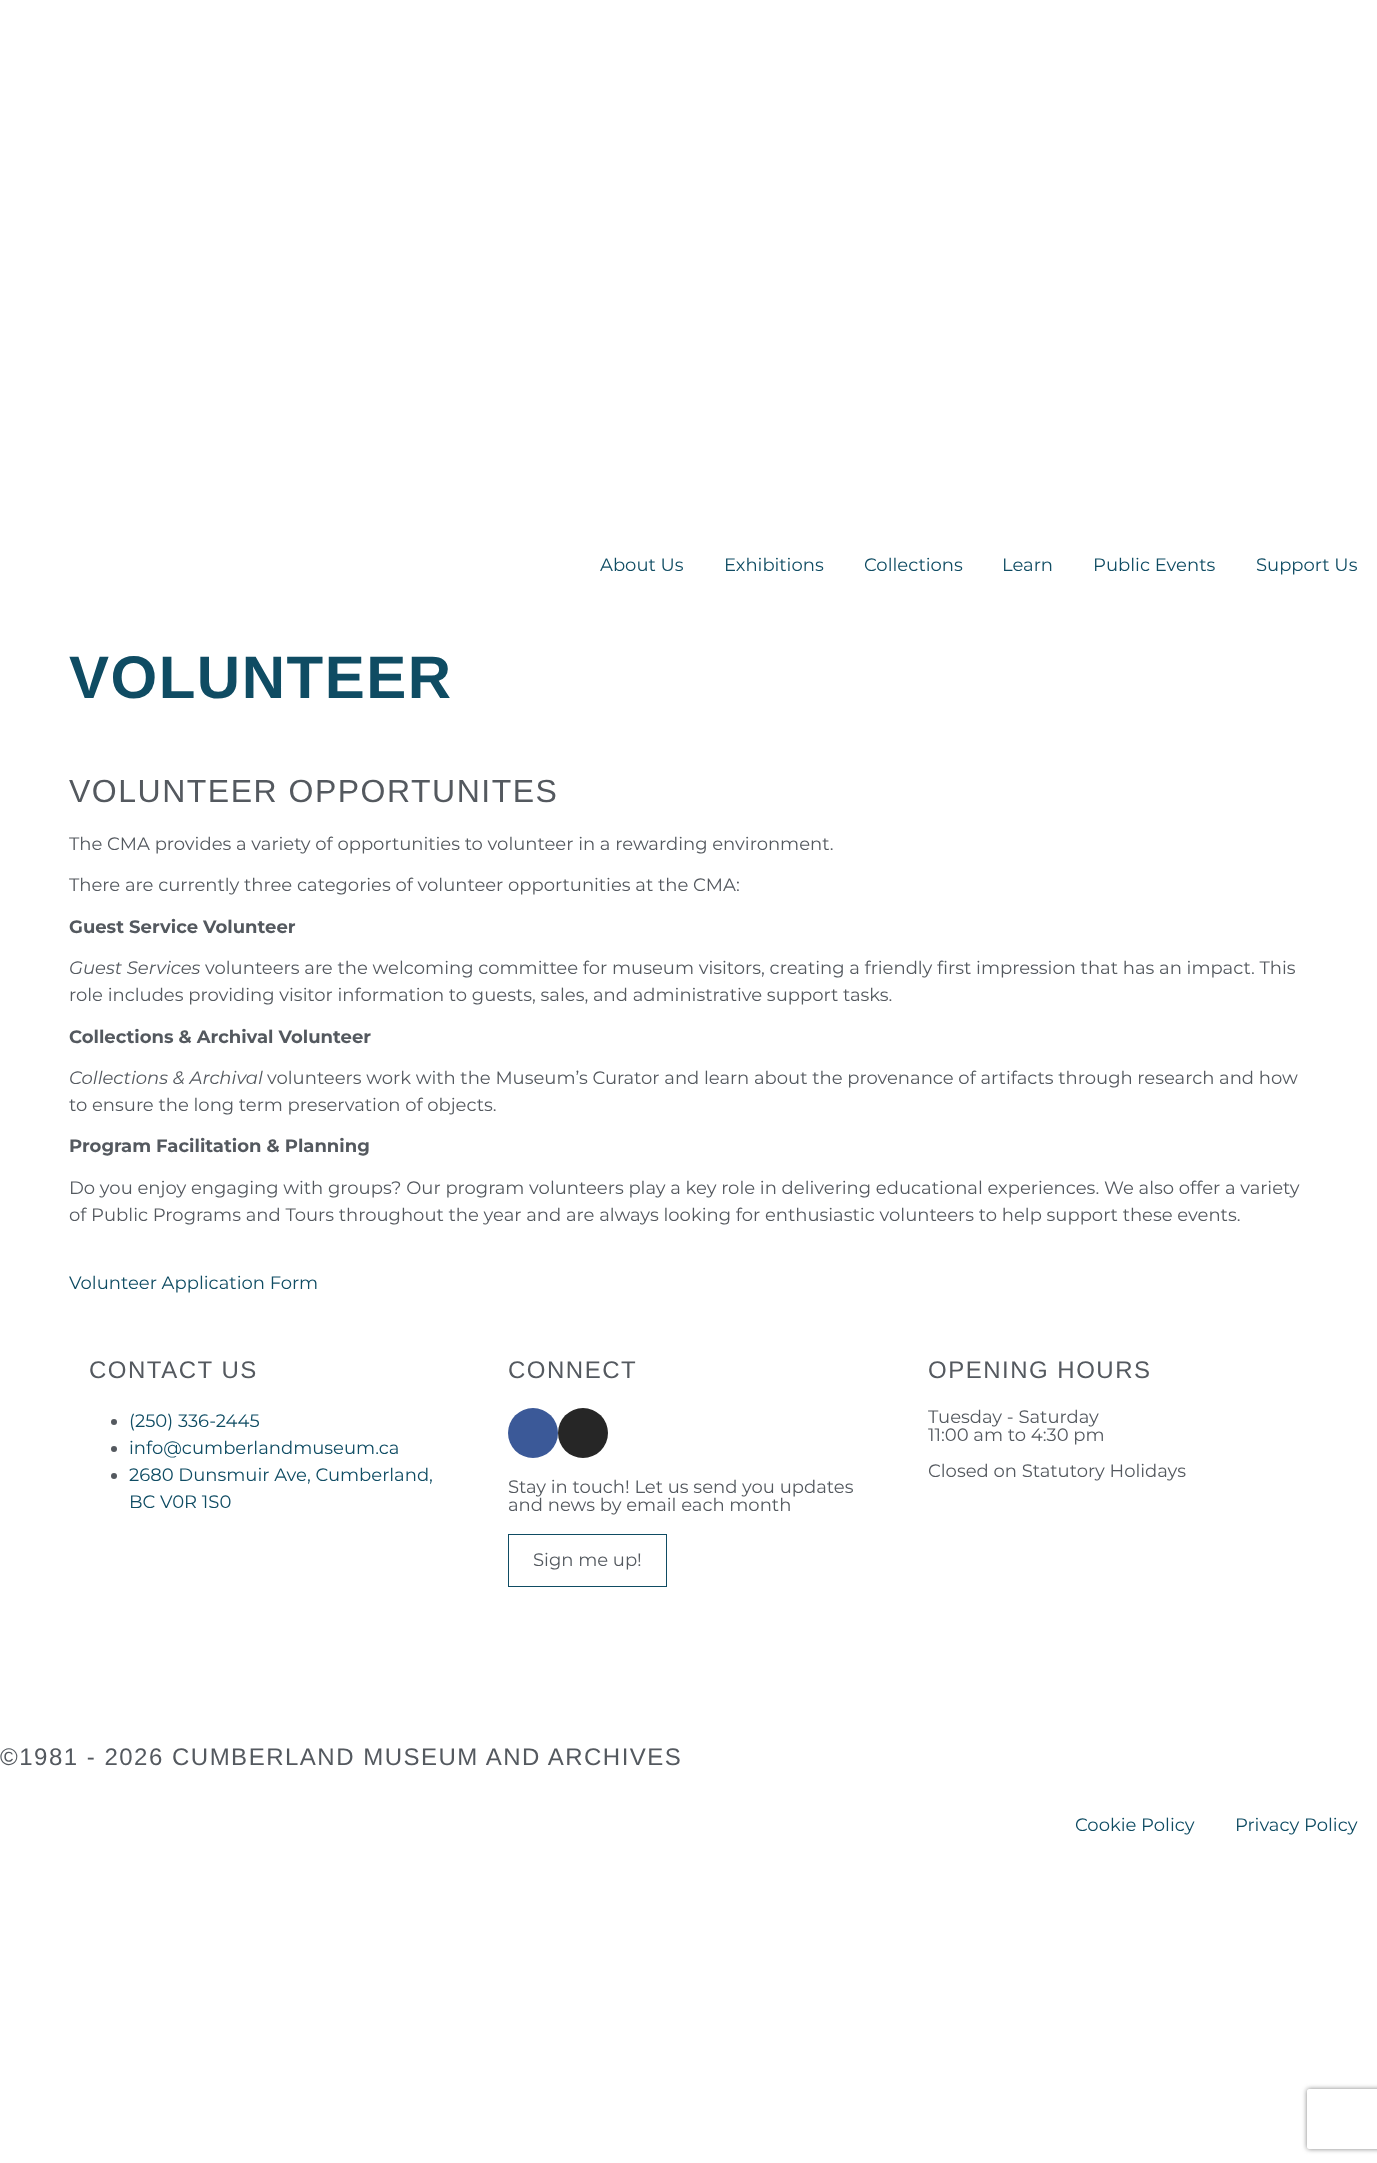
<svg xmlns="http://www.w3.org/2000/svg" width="1377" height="2163">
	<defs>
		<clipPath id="clip1"><path d="M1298 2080H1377V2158H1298ZM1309 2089H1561C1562 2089 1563 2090 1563 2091V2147C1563 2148 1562 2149 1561 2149H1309C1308 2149 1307 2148 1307 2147V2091C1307 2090 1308 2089 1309 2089Z" clip-rule="evenodd" /></clipPath>
	</defs>
	<rect width="100%" height="100%" fill="#FFFFFF" />
	<g font-family="Montserrat" font-size="18" fill="#0F4C63">
		<text x="600" y="571">About Us</text>
		<text x="724" y="571">Exhibitions</text>
		<text x="864" y="571">Collections</text>
		<text x="1002" y="571">Learn</text>
		<text x="1093" y="571">Public Events</text>
		<text x="1256" y="571">Support Us</text>
	</g>
	<text x="69" y="698" font-family="Liberation Sans" font-size="60" font-weight="700" letter-spacing="1.5" fill="#0F4C63">VOLUNTEER</text>
	<text x="69" y="802" font-family="Liberation Sans" font-size="32" letter-spacing="1.5" fill="#54595F">VOLUNTEER OPPORTUNITES</text>
	<g font-family="Montserrat" font-size="18" fill="#54595F">
		<text x="69" y="850">The CMA provides a variety of opportunities to volunteer in a rewarding environment.</text>
		<text x="69" y="891">There are currently three categories of volunteer opportunities at the CMA:</text>
	</g>
	<text x="69" y="933" font-family="Montserrat" font-size="18" font-weight="700" fill="#54595F">Guest Service Volunteer</text>
	<text x="69" y="974" font-family="Montserrat" font-size="18" font-style="italic" fill="#54595F">Guest Services</text>
	<g font-family="Montserrat" font-size="18" fill="#54595F">
		<text x="205" y="974">volunteers are the welcoming committee for museum visitors, creating a friendly first impression that has an impact. This</text>
		<text x="69" y="1001">role includes providing visitor information to guests, sales, and administrative support tasks.</text>
	</g>
	<text x="69" y="1043" font-family="Montserrat" font-size="18" font-weight="700" fill="#54595F">Collections &amp; Archival Volunteer</text>
	<text x="69" y="1084" font-family="Montserrat" font-size="18" font-style="italic" fill="#54595F">Collections &amp; Archival</text>
	<g font-family="Montserrat" font-size="18" fill="#54595F">
		<text x="267" y="1084">volunteers work with the Museum’s Curator and learn about the provenance of artifacts through research and how</text>
		<text x="69" y="1111">to ensure the long term preservation of objects.</text>
	</g>
	<text x="69" y="1152" font-family="Montserrat" font-size="18" font-weight="700" fill="#54595F">Program Facilitation &amp; Planning</text>
	<g font-family="Montserrat" font-size="18" fill="#54595F">
		<text x="69" y="1194">Do you enjoy engaging with groups? Our program volunteers play a key role in delivering educational experiences. We also offer a variety</text>
		<text x="69" y="1221">of Public Programs and Tours throughout the year and are always looking for enthusiastic volunteers to help support these events.</text>
	</g>
	<text x="69" y="1289" font-family="Montserrat" font-size="18" fill="#0F4C63">Volunteer Application Form</text>
	<text x="89" y="1378" font-family="Liberation Sans" font-size="24" letter-spacing="1.5" fill="#54595F">CONTACT US</text>
	<circle cx="114" cy="1422" r="3" fill="#54595F" />
	<text x="129" y="1427" font-family="Montserrat" font-size="18" fill="#0F4C63">(250) 336-2445</text>
	<circle cx="114" cy="1449" r="3" fill="#54595F" />
	<text x="129" y="1454" font-family="Montserrat" font-size="18" fill="#0F4C63">info@cumberlandmuseum.ca</text>
	<circle cx="114" cy="1476" r="3" fill="#54595F" />
	<g font-family="Montserrat" font-size="18" fill="#0F4C63">
		<text x="129" y="1481">2680 Dunsmuir Ave, Cumberland,</text>
		<text x="129" y="1508">BC V0R 1S0</text>
	</g>
	<text x="508" y="1378" font-family="Liberation Sans" font-size="24" letter-spacing="1.5" fill="#54595F">CONNECT</text>
	<circle cx="533" cy="1433" r="25" fill="#3B5998" />
	<circle cx="583" cy="1433" r="25" fill="#262626" />
	<g font-family="Montserrat" font-size="18" fill="#54595F">
		<text x="508" y="1493">Stay in touch! Let us send you updates</text>
		<text x="508" y="1511">and news by email each month</text>
	</g>
	<rect x="508.5" y="1534.5" width="158" height="52" fill="none" stroke="#0F4C63" />
	<text x="533" y="1566" font-family="Montserrat" font-size="18" fill="#54595F">Sign me up!</text>
	<text x="928" y="1378" font-family="Liberation Sans" font-size="24" letter-spacing="1.5" fill="#54595F">OPENING HOURS</text>
	<g font-family="Montserrat" font-size="18" fill="#54595F">
		<text x="928" y="1423">Tuesday - Saturday</text>
		<text x="928" y="1441">11:00 am to 4:30 pm</text>
		<text x="928" y="1477">Closed on Statutory Holidays</text>
	</g>
	<text x="0" y="1765" font-family="Liberation Sans" font-size="24" letter-spacing="1.5" fill="#54595F">©1981 - 2026 CUMBERLAND MUSEUM AND ARCHIVES</text>
	<g font-family="Montserrat" font-size="18" fill="#0F4C63">
		<text x="1075" y="1831">Cookie Policy</text>
		<text x="1235" y="1831">Privacy Policy</text>
	</g>
	<g clip-path="url(#clip1)">
		<rect x="1307" y="2089" width="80" height="60" rx="2" fill="#808080" filter="blur(2.5px)" />
	</g>
</svg>
